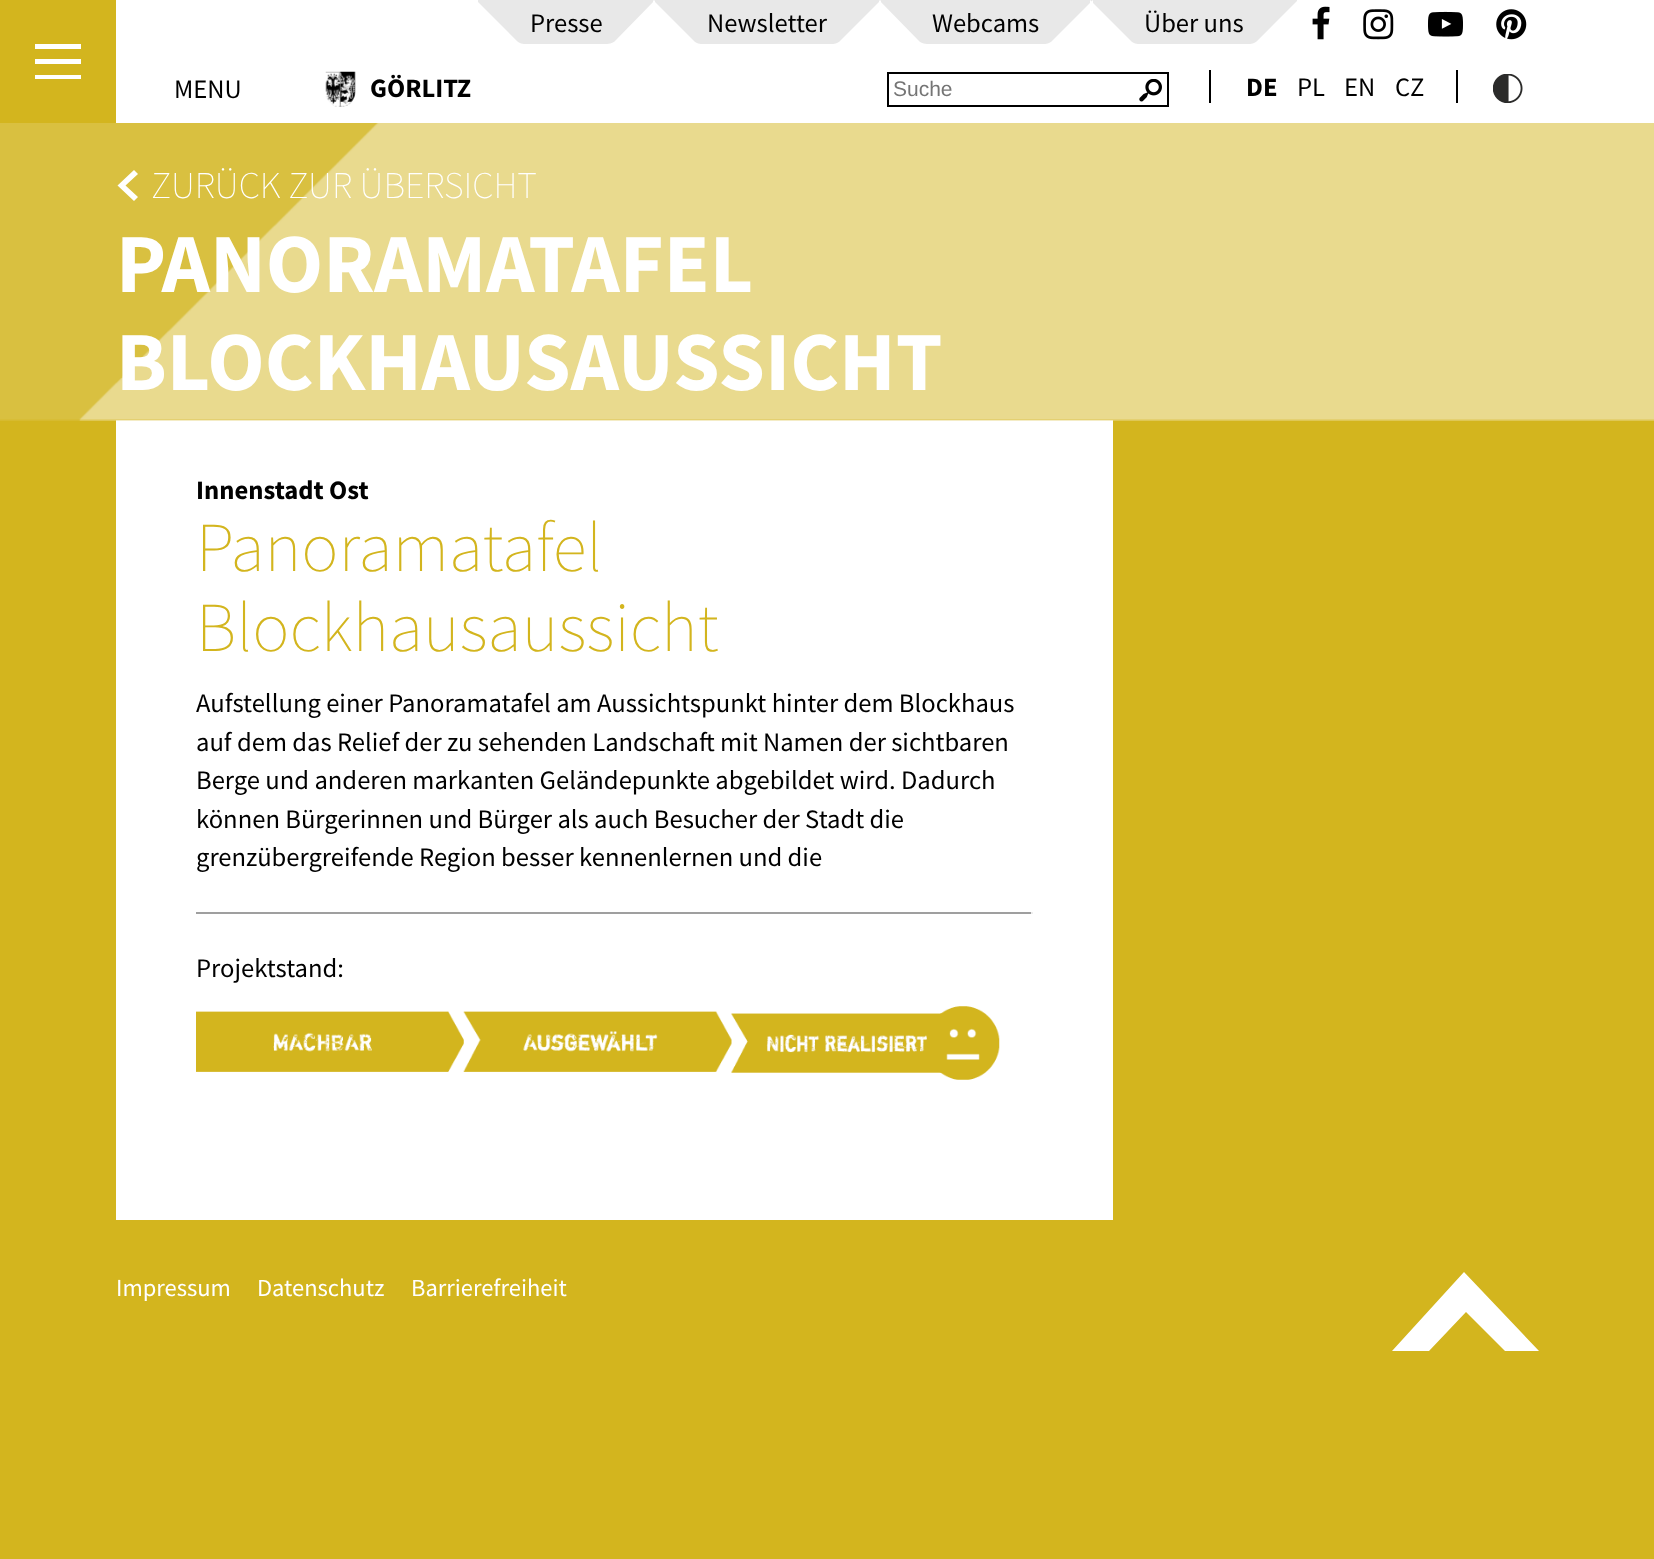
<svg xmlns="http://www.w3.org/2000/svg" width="1654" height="1559">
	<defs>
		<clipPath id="clip1"><rect x="1250" y="0" width="47" height="44" /></clipPath>
	</defs>
	<rect width="100%" height="100%" fill="#D3B51E" />
	<rect x="116" y="0" width="1538" height="123" fill="#FFFFFF" />
	<rect x="478" y="0" width="819" height="44" fill="#E8E8E8" />
	<path d="M476 44V0L517 41C517 41 520 44 524 44Z" fill="#FFFFFF" />
	<text x="530" y="32" font-family="Source Sans Pro" font-size="26.6" fill="#000000">Presse</text>
	<path d="M655 44V0L615 41C615 41 612 44 607 44Z" fill="#FFFFFF" />
	<path d="M653 44V0L694 41C694 41 697 44 701 44Z" fill="#FFFFFF" />
	<text x="707" y="32" font-family="Source Sans Pro" font-size="26.6" fill="#000000">Newsletter</text>
	<path d="M881 44V0L840 41C840 41 837 44 833 44Z" fill="#FFFFFF" />
	<path d="M879 44V0L919 41C919 41 922 44 927 44Z" fill="#FFFFFF" />
	<text x="932" y="32" font-family="Source Sans Pro" font-size="26.6" fill="#000000">Webcams</text>
	<path d="M1093 44V0L1052 41C1052 41 1049 44 1045 44Z" fill="#FFFFFF" />
	<path d="M1090 44V0L1131 41C1131 41 1134 44 1138 44Z" fill="#FFFFFF" />
	<text x="1144" y="32" font-family="Source Sans Pro" font-size="26.6" fill="#000000">Über uns</text>
	<g clip-path="url(#clip1)">
		<path d="M1298 44V0L1257 41C1257 41 1254 44 1250 44Z" fill="#FFFFFF" />
	</g>
	<image x="1312" y="6" width="18" height="34" href="assets/img1.png" />
	<image x="1363" y="9" width="31" height="31" href="assets/img2.png" />
	<image x="1428" y="11" width="35" height="26" href="assets/img3.png" />
	<image x="1496" y="9" width="31" height="31" href="assets/img4.png" />
	<rect x="35" y="44" width="46" height="5" fill="#FFFFFF" />
	<rect x="35" y="59" width="46" height="5" fill="#FFFFFF" />
	<rect x="35" y="75" width="46" height="4" fill="#FFFFFF" />
	<text x="174" y="98" font-family="Source Sans Pro" font-size="26.6" fill="#000000">MENU</text>
	<image x="325" y="71" width="31" height="36" href="assets/img5.png" />
	<text x="370" y="97" font-family="Source Sans Pro" font-size="26.6" font-weight="700" fill="#000000">GÖRLITZ</text>
	<image x="1139" y="79" width="23" height="23" href="assets/img6.png" />
	<rect x="888" y="73" width="280" height="33" fill="none" stroke="#000000" stroke-width="2" />
	<text x="893" y="96" font-family="Liberation Sans" font-size="21" fill="#757575">Suche</text>
	<rect x="1209" y="70" width="2" height="33" fill="#000000" />
	<text x="1246" y="96" font-family="Source Sans Pro" font-size="26.6" font-weight="700" fill="#000000">DE</text>
	<g font-family="Source Sans Pro" font-size="26.6" fill="#000000">
		<text x="1297" y="96">PL</text>
		<text x="1344" y="96">EN</text>
		<text x="1395" y="96">CZ</text>
	</g>
	<rect x="1456" y="70" width="2" height="33" fill="#000000" />
	<image x="1493" y="74" width="30" height="29" href="assets/img7.png" />
	<rect x="116" y="420" width="997" height="800" fill="#FFFFFF" />
	<image x="0" y="123" width="1654" height="298" href="assets/img8.png" />
	<text x="151" y="198" font-family="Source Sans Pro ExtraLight" font-size="37.75" font-weight="200" fill="#FFFFFF">ZURÜCK ZUR ÜBERSICHT</text>
	<path d="M134 170L117.5 185.5L134 201L138 197L125.5 185.5L138 174Z" fill="#FFFFFF" />
	<g font-family="Source Sans Pro" font-size="84" font-weight="700" fill="#FFFFFF">
		<text x="116" y="292">PANORAMATAFEL</text>
		<text x="116" y="390">BLOCKHAUSAUSSICHT</text>
	</g>
	<text x="196" y="499" font-family="Source Sans Pro" font-size="26.6" font-weight="700" fill="#000000">Innenstadt Ost</text>
	<g font-family="Source Sans Pro ExtraLight" font-size="70" font-weight="200" fill="#D3B51E">
		<text x="196" y="571">Panoramatafel</text>
		<text x="196" y="651">Blockhausaussicht</text>
	</g>
	<g font-family="Source Sans Pro" font-size="26.6" fill="#000000">
		<text x="196" y="712">Aufstellung einer Panoramatafel am Aussichtspunkt hinter dem Blockhaus</text>
		<text x="196" y="751">auf dem das Relief der zu sehenden Landschaft mit Namen der sichtbaren</text>
		<text x="196" y="789">Berge und anderen markanten Geländepunkte abgebildet wird. Dadurch</text>
		<text x="196" y="828">können Bürgerinnen und Bürger als auch Besucher der Stadt die</text>
		<text x="196" y="866">grenzübergreifende Region besser kennenlernen und die</text>
	</g>
	<rect x="196" y="912" width="837" height="2" fill="#9F9F9F" />
	<rect x="1031" y="912" width="2" height="2" fill="#EEEEEE" />
	<text x="196" y="977" font-family="Source Sans Pro" font-size="26.6" fill="#000000">Projektstand:</text>
	<image x="196" y="1011" width="268" height="61" href="assets/img9.png" />
	<image x="463" y="1011" width="269" height="61" href="assets/img10.png" />
	<image x="731" y="1006" width="269" height="74" href="assets/img11.png" />
	<g font-family="Source Sans Pro" font-size="24.5" fill="#FFFFFF">
		<text x="116" y="1296">Impressum</text>
		<text x="257" y="1296">Datenschutz</text>
		<text x="411" y="1296">Barrierefreiheit</text>
	</g>
	<path d="M1464 1272L1392 1351H1429L1466 1312L1505 1351H1539Z" fill="#FFFFFF" />
</svg>
